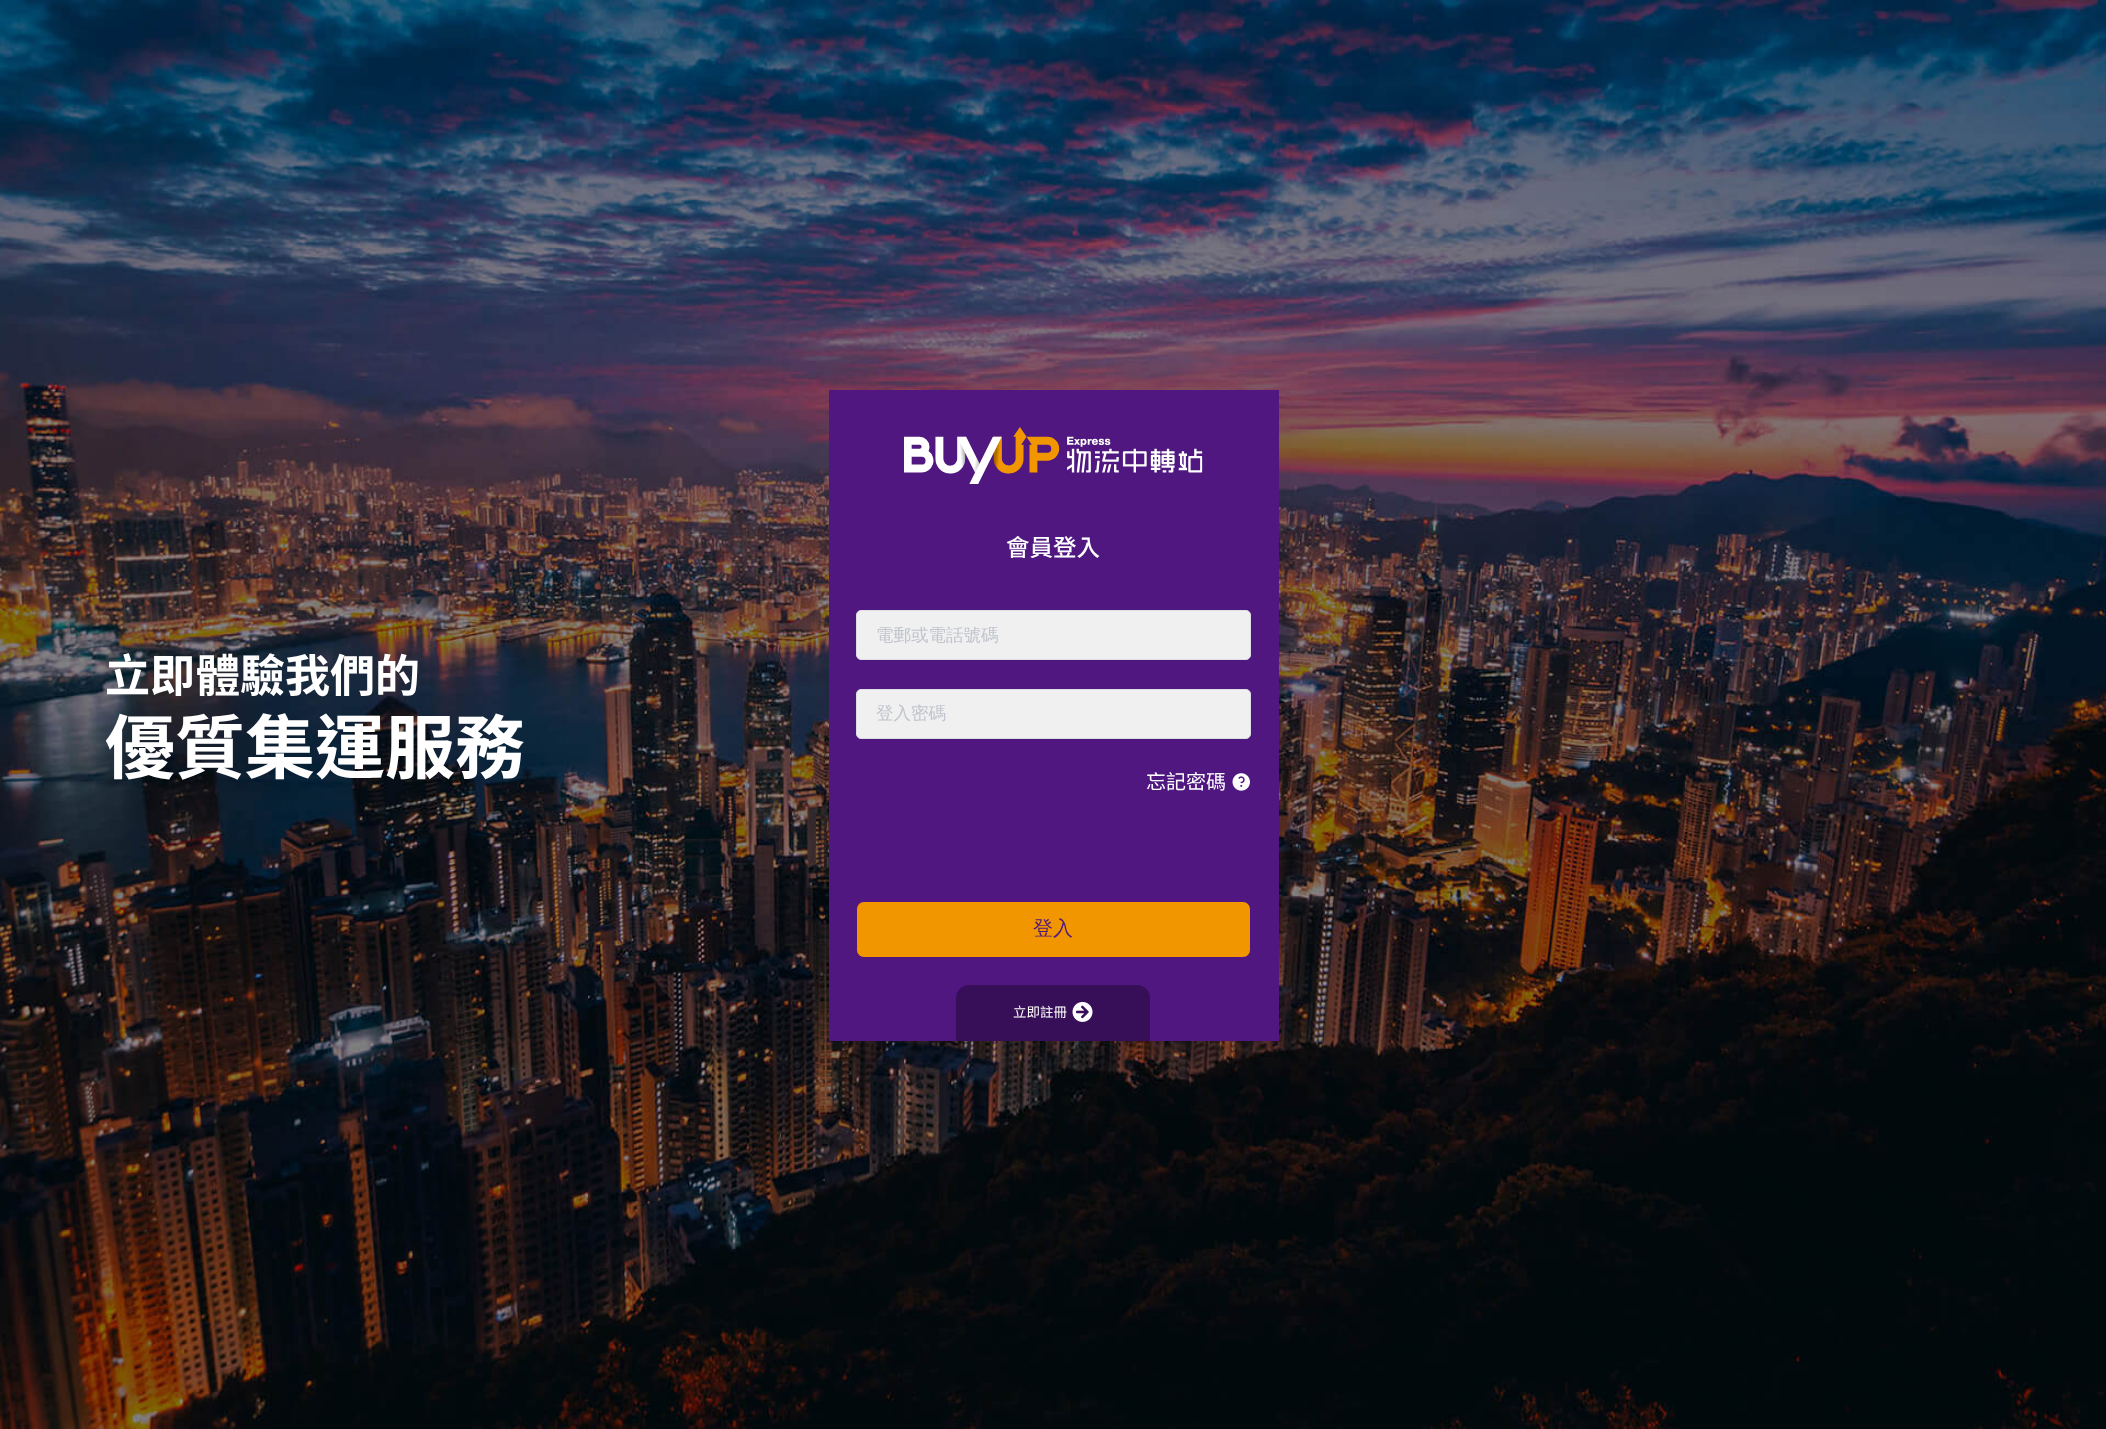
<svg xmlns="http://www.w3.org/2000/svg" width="2106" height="1429">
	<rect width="100%" height="100%" fill="#FFFFFF" />
	<image x="0" y="0" width="2106" height="1429" href="assets/img1.png" />
	<text x="105" y="692" font-family="Noto Sans HK" font-size="45" font-weight="700" fill="#FFFFFF">立即體驗我們的</text>
	<text x="105" y="773" font-family="Noto Sans HK" font-size="70" font-weight="700" fill="#FFFFFF">優質集運服務</text>
	<rect x="829" y="390" width="450" height="651" fill="#4F177F" />
	<image x="904" y="427" width="299" height="57" href="assets/img2.png" />
	<text x="1006" y="556" font-family="Noto Sans HK" font-size="23.5" font-weight="500" fill="#FFFFFF">會員登入</text>
	<rect x="856.5" y="610.5" width="394" height="49" rx="4.5" fill="#F0F0F0" stroke="#DCDFE6" />
	<text x="876" y="641" font-family="WenQuanYi Zen Hei" font-size="17.5" font-weight="500" fill="#C0C4CC">電郵或電話號碼</text>
	<rect x="856.5" y="689.5" width="394" height="49" rx="4.5" fill="#F0F0F0" stroke="#DCDFE6" />
	<text x="876" y="719" font-family="WenQuanYi Zen Hei" font-size="17.5" font-weight="500" fill="#C0C4CC">登入密碼</text>
	<text x="1146" y="789" font-family="Noto Sans HK" font-size="20" fill="#FFFFFF">忘記密碼</text>
	<image x="1232" y="773" width="18" height="18" href="assets/img3.png" />
	<rect x="856.5" y="901.5" width="394" height="56" rx="7.5" fill="#F29600" stroke="#4F177F" />
	<text x="1033" y="935" font-family="WenQuanYi Zen Hei" font-size="20" font-weight="500" fill="#4F177F">登入</text>
	<path d="M969 985H1137C1144 985 1150 991 1150 998V1041H956V998C956 991 962 985 969 985Z" fill="#370E58" />
	<text x="1013" y="1017" font-family="Noto Sans HK" font-size="13.5" fill="#FFFFFF">立即註冊</text>
	<image x="1072" y="1001" width="21" height="21" href="assets/img4.png" />
</svg>
